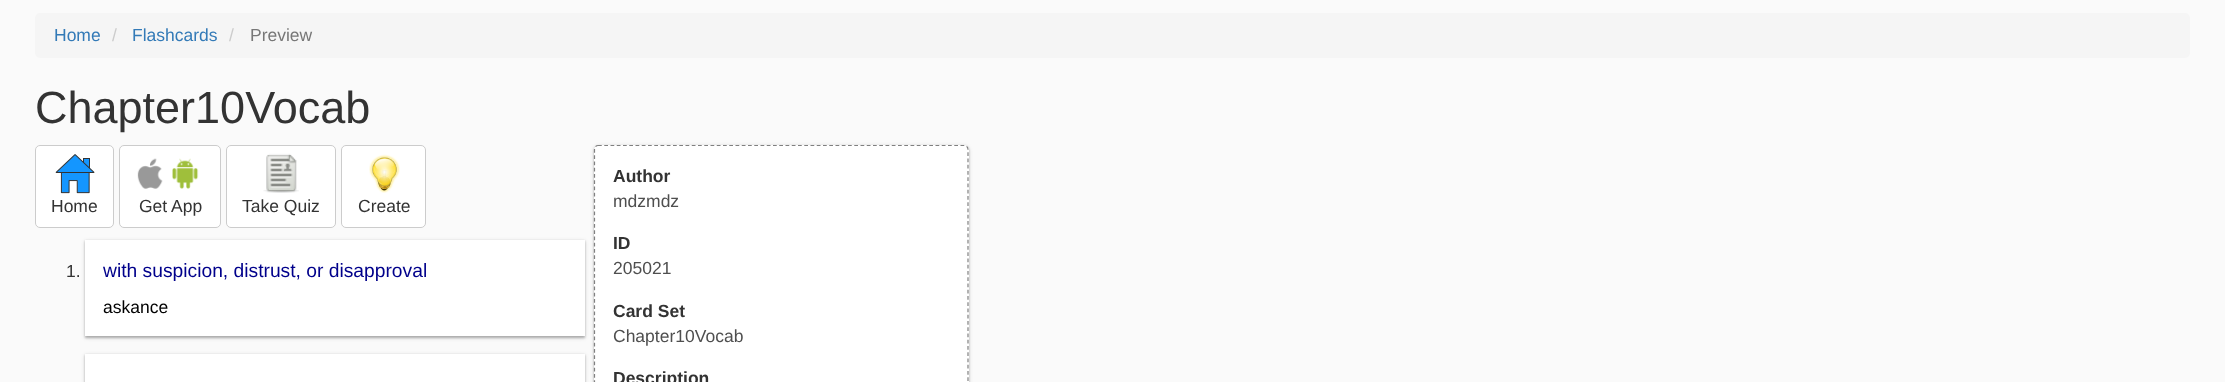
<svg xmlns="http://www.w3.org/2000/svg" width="2225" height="382">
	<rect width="100%" height="100%" fill="#FAFAFA" />
	<rect x="35" y="13" width="2155" height="45" rx="5" fill="#F5F5F5" />
	<text x="54" y="41" font-family="Liberation Sans" font-size="17.5" fill="#337AB7">Home</text>
	<text x="112" y="41" font-family="Liberation Sans" font-size="17.5" fill="#CCCCCC">/</text>
	<text x="132" y="41" font-family="Liberation Sans" font-size="17.5" fill="#337AB7">Flashcards</text>
	<text x="229" y="41" font-family="Liberation Sans" font-size="17.5" fill="#CCCCCC">/</text>
	<text x="250" y="41" font-family="Liberation Sans" font-size="17.5" fill="#777777">Preview</text>
	<text x="35" y="123" font-family="Liberation Sans" font-size="45" fill="#333333">Chapter10Vocab</text>
	<rect x="35.5" y="145.5" width="78" height="82" rx="4.5" fill="#FFFFFF" stroke="#CCCCCC" />
	<image x="55" y="154" width="40" height="40" href="assets/img1.png" />
	<text x="51" y="212" font-family="Liberation Sans" font-size="17.5" fill="#333333">Home</text>
	<rect x="119.5" y="145.5" width="101" height="82" rx="4.5" fill="#FFFFFF" stroke="#CCCCCC" />
	<image x="137" y="158" width="26" height="31" href="assets/img2.png" />
	<image x="172" y="158" width="27" height="31" href="assets/img3.png" />
	<text x="139" y="212" font-family="Liberation Sans" font-size="17.5" fill="#333333">Get App</text>
	<rect x="226.5" y="145.5" width="109" height="82" rx="4.5" fill="#FFFFFF" stroke="#CCCCCC" />
	<image x="263" y="153" width="36" height="40" href="assets/img4.png" />
	<text x="242" y="212" font-family="Liberation Sans" font-size="17.5" fill="#333333">Take Quiz</text>
	<rect x="341.5" y="145.5" width="84" height="82" rx="4.5" fill="#FFFFFF" stroke="#CCCCCC" />
	<image x="369" y="154" width="31" height="39" href="assets/img5.png" />
	<text x="358" y="212" font-family="Liberation Sans" font-size="17.5" fill="#333333">Create</text>
	<rect x="85" y="241" width="500" height="97" fill="#000000" fill-opacity="0.12" filter="blur(2px)" />
	<text x="66" y="277" font-family="Liberation Sans" font-size="17.5" fill="#333333">1.</text>
	<rect x="85" y="241" width="500" height="97" fill="#000000" fill-opacity="0.24" filter="blur(1px)" />
	<rect x="85" y="240" width="500" height="96" fill="#FFFFFF" />
	<text x="103" y="277" font-family="Liberation Sans" font-size="19.25" fill="#00008B">with suspicion, distrust, or disapproval</text>
	<text x="103" y="313" font-family="Liberation Sans" font-size="17.5" fill="#000000">askance</text>
	<rect x="85" y="355" width="500" height="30" fill="#000000" fill-opacity="0.24" filter="blur(1px)" />
	<rect x="85" y="355" width="500" height="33" fill="#000000" fill-opacity="0.12" filter="blur(2px)" />
	<rect x="85" y="354" width="500" height="28" fill="#FFFFFF" />
	<rect x="594" y="146" width="375" height="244" rx="5" fill="#000000" fill-opacity="0.24" filter="blur(1px)" />
	<rect x="594" y="146" width="375" height="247" rx="5" fill="#000000" fill-opacity="0.12" filter="blur(2px)" />
	<rect x="594" y="145" width="375" height="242" rx="5" fill="#FFFFFF" />
	<path d="M598 145.5H964.5C966.5 145.5 968 147.5 968 149.5V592C968 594 966.5 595.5 964.5 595.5H598C596 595.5 594.5 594 594.5 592V149.5C594.5 147.5 596 145.5 598 145.5Z" fill="none" stroke="#808080" stroke-width="1.2" stroke-dasharray="3.75 2.5" />
	<text x="613" y="182" font-family="Liberation Sans" font-size="17.5" font-weight="700" fill="#333333">Author</text>
	<text x="613" y="207" font-family="Liberation Sans" font-size="17.5" fill="#4F4F4F">mdzmdz</text>
	<text x="613" y="249" font-family="Liberation Sans" font-size="17.5" font-weight="700" fill="#333333">ID</text>
	<text x="613" y="274" font-family="Liberation Sans" font-size="17.5" fill="#4F4F4F">205021</text>
	<text x="613" y="317" font-family="Liberation Sans" font-size="17.5" font-weight="700" fill="#333333">Card Set</text>
	<text x="613" y="342" font-family="Liberation Sans" font-size="17.5" fill="#4F4F4F">Chapter10Vocab</text>
	<text x="613" y="384" font-family="Liberation Sans" font-size="17.5" font-weight="700" fill="#333333">Description</text>
</svg>
